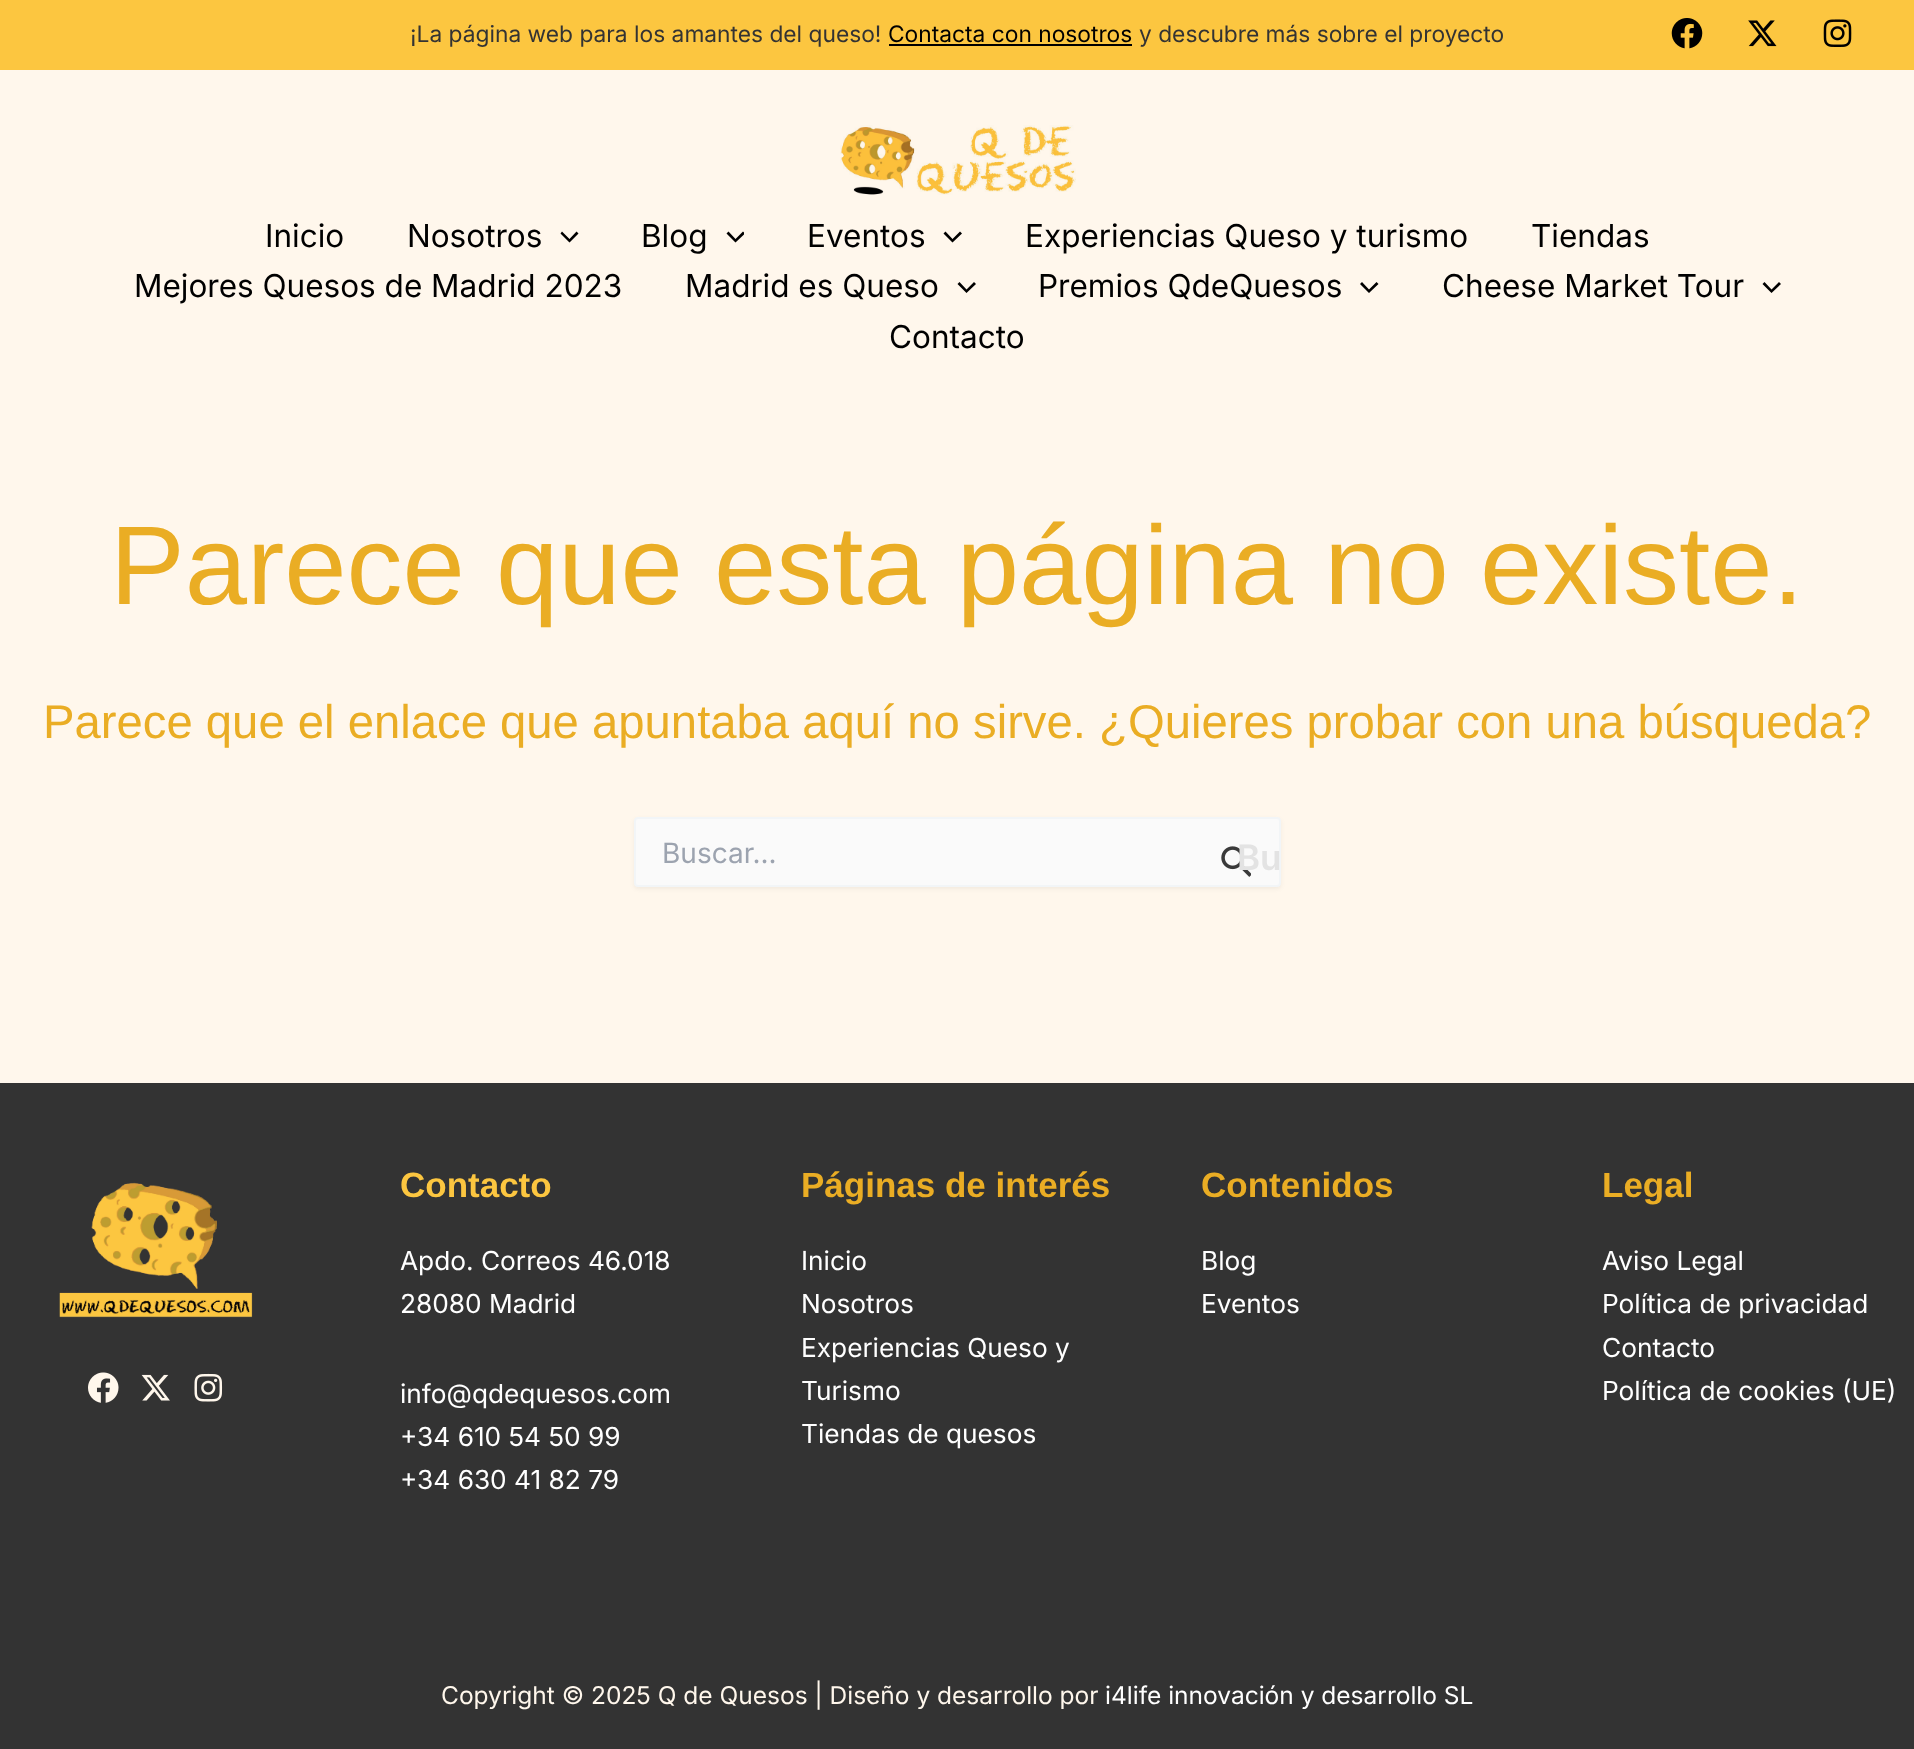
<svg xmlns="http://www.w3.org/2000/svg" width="1914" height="1749">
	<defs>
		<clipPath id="clip1"><rect x="726" y="228" width="18" height="19" /></clipPath>
	</defs>
	<rect width="100%" height="100%" fill="#FFF7EC" />
	<rect x="0" y="0" width="1914" height="70" fill="#FCC640" />
	<text x="410" y="42" font-family="Inter" font-size="22.75" fill="#333333">¡La página web para los amantes del queso!</text>
	<text x="888" y="42" font-family="Inter" font-size="22.75" fill="#000000">Contacta con nosotros</text>
	<rect x="889" y="44" width="243" height="2" fill="#000000" />
	<text x="1139" y="42" font-family="Inter" font-size="22.75" fill="#333333">y descubre más sobre el proyecto</text>
	<image x="1671" y="18" width="32" height="31" href="assets/img1.png" />
	<image x="1748" y="20" width="29" height="27" href="assets/img2.png" />
	<image x="1823" y="19" width="29" height="28" href="assets/img3.png" />
	<image x="840" y="125" width="236" height="70" href="assets/img4.png" />
	<g font-family="Inter" font-size="31.5" fill="#000000">
		<text x="265" y="247">Inicio</text>
		<text x="407" y="247">Nosotros</text>
	</g>
	<path d="M560.5 233.5L569.5 242.5L578.5 233.5L576.5 231.5L569.5 239L562 231.5Z" fill="#000000" />
	<text x="641" y="247" font-family="Inter" font-size="31.5" fill="#000000">Blog</text>
	<g clip-path="url(#clip1)">
		<path d="M726.5 233.5L735.5 242.5L745 233.5L743 231.5L735.5 239L728.5 231.5Z" fill="#000000" />
	</g>
	<text x="807" y="247" font-family="Inter" font-size="31.5" fill="#000000">Eventos</text>
	<path d="M943.5 233.5L952.5 242.5L962 233.5L960 231.5L952.5 239L945.5 231.5Z" fill="#000000" />
	<g font-family="Inter" font-size="31.5" fill="#000000">
		<text x="1025" y="247">Experiencias Queso y turismo</text>
		<text x="1531" y="247">Tiendas</text>
		<text x="134" y="297">Mejores Quesos de Madrid 2023</text>
		<text x="685" y="297">Madrid es Queso</text>
	</g>
	<path d="M957.5 284L966.5 293L976 284L974 282L966.5 289.5L959.5 282Z" fill="#000000" />
	<text x="1038" y="297" font-family="Inter" font-size="31.5" fill="#000000">Premios QdeQuesos</text>
	<path d="M1360 284L1369 293L1378.5 284L1376.5 282L1369 289.5L1362 282Z" fill="#000000" />
	<text x="1442" y="297" font-family="Inter" font-size="31.5" fill="#000000">Cheese Market Tour</text>
	<path d="M1762.5 284L1771.5 293L1781 284L1779 282L1771.5 289.5L1764.5 282Z" fill="#000000" />
	<text x="889" y="348" font-family="Inter" font-size="31.5" fill="#000000">Contacto</text>
	<text x="110" y="604" font-family="Liberation Sans" font-size="112" fill="#EAAD24">Parece que esta página no existe.</text>
	<text x="43" y="738" font-family="Liberation Sans" font-size="47.25" fill="#EAAD24">Parece que el enlace que apuntaba aquí no sirve. ¿Quieres probar con una búsqueda?</text>
	<rect x="634" y="819" width="647" height="70" rx="4" fill="#000000" fill-opacity="0.05" filter="blur(2px)" />
	<rect x="635" y="818" width="645" height="68" rx="3" fill="#FAFAFA" stroke="#F2F5F7" stroke-width="2" />
	<text x="662" y="863" font-family="Inter" font-size="28" fill="#9CA3AF">Buscar...</text>
	<image x="1221" y="846" width="30" height="31" href="assets/img5.png" />
	<text x="1237" y="870" font-family="Inter" font-size="35" font-weight="600" fill="#E3E3E3">Bu</text>
	<rect x="0" y="1083" width="1914" height="666" fill="#333333" />
	<image x="59" y="1182" width="194" height="136" href="assets/img6.png" />
	<image x="88" y="1372" width="31" height="31" href="assets/img7.png" />
	<image x="141" y="1374" width="29" height="27" href="assets/img8.png" />
	<image x="194" y="1373" width="29" height="29" href="assets/img9.png" />
	<text x="400" y="1197" font-family="Liberation Sans" font-size="35" font-weight="700" fill="#FCC640">Contacto</text>
	<g font-family="Inter" font-size="26.25" fill="#FFFFFF">
		<text x="400" y="1270">Apdo. Correos 46.018</text>
		<text x="400" y="1313">28080 Madrid</text>
		<text x="400" y="1403">info@qdequesos.com</text>
		<text x="400" y="1446">+34 610 54 50 99</text>
		<text x="400" y="1489">+34 630 41 82 79</text>
	</g>
	<text x="801" y="1197" font-family="Liberation Sans" font-size="35" font-weight="700" fill="#EAAD24">Páginas de interés</text>
	<g font-family="Inter" font-size="26.25" fill="#FFFFFF">
		<text x="801" y="1270">Inicio</text>
		<text x="801" y="1313">Nosotros</text>
		<text x="801" y="1357">Experiencias Queso y</text>
		<text x="801" y="1400">Turismo</text>
		<text x="801" y="1443">Tiendas de quesos</text>
	</g>
	<text x="1201" y="1197" font-family="Liberation Sans" font-size="35" font-weight="700" fill="#EAAD24">Contenidos</text>
	<g font-family="Inter" font-size="26.25" fill="#FFFFFF">
		<text x="1201" y="1270">Blog</text>
		<text x="1201" y="1313">Eventos</text>
	</g>
	<text x="1602" y="1197" font-family="Liberation Sans" font-size="35" font-weight="700" fill="#EAAD24">Legal</text>
	<g font-family="Inter" font-size="26.25" fill="#FFFFFF">
		<text x="1602" y="1270">Aviso Legal</text>
		<text x="1602" y="1313">Política de privacidad</text>
		<text x="1602" y="1357">Contacto</text>
		<text x="1602" y="1400">Política de cookies (UE)</text>
	</g>
	<text x="441" y="1704" font-family="Inter" font-size="24.5" fill="#FFF7EC">Copyright © 2025 Q de Quesos | Diseño y desarrollo por</text>
	<text x="1105" y="1704" font-family="Inter" font-size="24.5" fill="#FFFFFF">i4life innovación y desarrollo SL</text>
</svg>
